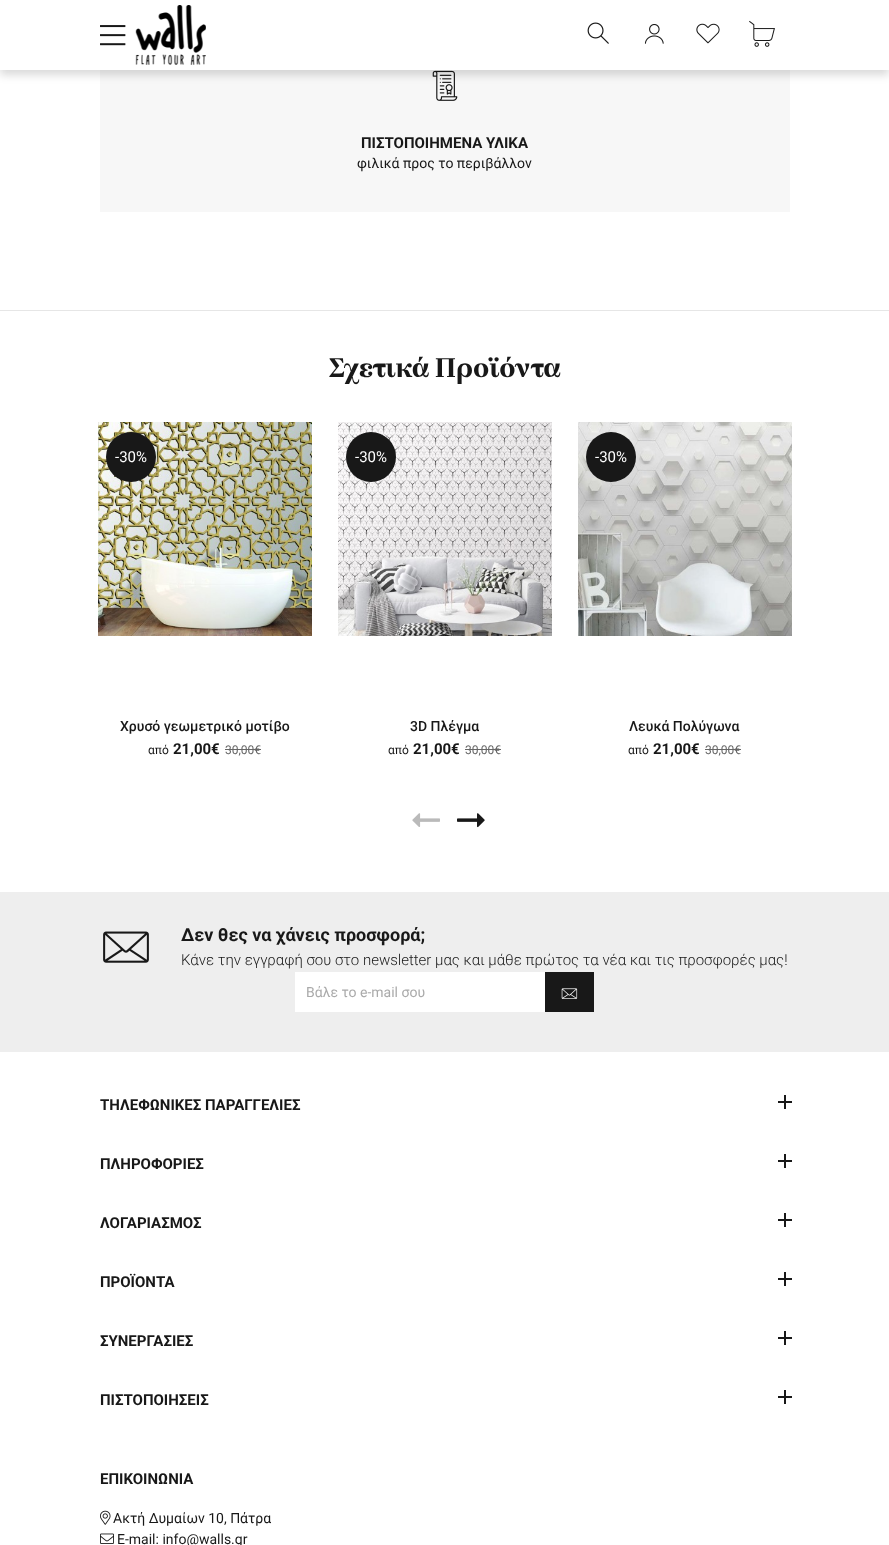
<svg xmlns="http://www.w3.org/2000/svg" width="889" height="1545">
	<rect width="100%" height="100%" fill="#FFFFFF" />
	<rect x="100" y="70" width="690" height="142" fill="#F7F7F7" />
	<image x="432" y="70" width="26" height="31" href="assets/img7.png" />
	<rect x="0" y="5" width="889" height="70" fill="#000000" fill-opacity="0.15" filter="blur(4px)" />
	<rect x="0" y="0" width="889" height="70" fill="#FFFFFF" />
	<image x="100" y="25" width="26" height="21" href="assets/img1.png" />
	<image x="135" y="5" width="71" height="60" href="assets/img2.png" />
	<image x="587" y="22" width="22" height="22" href="assets/img3.png" />
	<image x="644" y="24" width="20" height="20" href="assets/img4.png" />
	<image x="696" y="23" width="24" height="21" href="assets/img5.png" />
	<image x="749" y="20" width="26" height="27" href="assets/img6.png" />
	<text x="361" y="148" font-family="Roboto" font-size="15" font-weight="700" fill="#181818">ΠΙΣΤΟΠΟΙΗΜΕΝΑ ΥΛΙΚΑ</text>
	<text x="357" y="168" font-family="Roboto" font-size="14" fill="#181818">φιλικά προς το περιβάλλον</text>
	<rect x="0" y="310" width="889" height="1" fill="#E6E6E6" />
	<text x="329" y="377" font-family="'Brygada 1918'" font-size="28" font-weight="700" fill="#181818">Σχετικά Προϊόντα</text>
	<image x="98" y="422" width="214" height="214" href="assets/img8.png" />
	<circle cx="131" cy="457" r="25" fill="#181818" />
	<text x="115" y="462" font-family="Roboto" font-size="15" fill="#FFFFFF">-30%</text>
	<text x="120" y="731" font-family="Roboto" font-size="14" font-weight="500" fill="#181818">Χρυσό γεωμετρικό μοτίβο</text>
	<text x="148" y="754" font-family="Roboto" font-size="12" fill="#181818">από</text>
	<text x="173" y="754" font-family="Roboto" font-size="15" font-weight="700" fill="#181818">21,00€</text>
	<text x="225" y="754" font-family="Roboto" font-size="12" fill="#666666">30,00€</text>
	<rect x="225" y="749" width="36" height="1" fill="#666666" />
	<image x="338" y="422" width="214" height="214" href="assets/img9.png" />
	<circle cx="371" cy="457" r="25" fill="#181818" />
	<text x="355" y="462" font-family="Roboto" font-size="15" fill="#FFFFFF">-30%</text>
	<text x="410" y="731" font-family="Roboto" font-size="14" font-weight="500" fill="#181818">3D Πλέγμα</text>
	<text x="388" y="754" font-family="Roboto" font-size="12" fill="#181818">από</text>
	<text x="413" y="754" font-family="Roboto" font-size="15" font-weight="700" fill="#181818">21,00€</text>
	<text x="465" y="754" font-family="Roboto" font-size="12" fill="#666666">30,00€</text>
	<rect x="465" y="749" width="36" height="1" fill="#666666" />
	<image x="578" y="422" width="214" height="214" href="assets/img10.png" />
	<circle cx="611" cy="457" r="25" fill="#181818" />
	<text x="595" y="462" font-family="Roboto" font-size="15" fill="#FFFFFF">-30%</text>
	<text x="629" y="731" font-family="Roboto" font-size="14" font-weight="500" fill="#181818">Λευκά Πολύγωνα</text>
	<text x="628" y="754" font-family="Roboto" font-size="12" fill="#181818">από</text>
	<text x="653" y="754" font-family="Roboto" font-size="15" font-weight="700" fill="#181818">21,00€</text>
	<text x="705" y="754" font-family="Roboto" font-size="12" fill="#666666">30,00€</text>
	<rect x="705" y="749" width="36" height="1" fill="#666666" />
	<image x="412" y="813" width="28" height="14" href="assets/img11.png" />
	<image x="457" y="813" width="28" height="15" href="assets/img12.png" />
	<rect x="0" y="892" width="889" height="160" fill="#EEEEEE" />
	<image x="103" y="931" width="46" height="32" href="assets/img13.png" />
	<text x="181" y="941" font-family="Roboto" font-size="18" font-weight="700" fill="#181818">Δεν θες να χάνεις προσφορά;</text>
	<text x="181" y="965" font-family="Roboto" font-size="15" font-weight="300" fill="#181818">Κάνε την εγγραφή σου στο newsletter μας και μάθε πρώτος τα νέα και τις προσφορές μας!</text>
	<rect x="296" y="973" width="249" height="38" fill="#FFFFFF" />
	<rect x="295" y="972" width="250" height="1" fill="#FFFFFF" />
	<rect x="295" y="1011" width="250" height="1" fill="#FFFFFF" />
	<rect x="295" y="972" width="1" height="40" fill="#FFFFFF" />
	<text x="306" y="997" font-family="Roboto" font-size="14" fill="#AAAAAA">Βάλε το e-mail σου</text>
	<rect x="545" y="972" width="49" height="40" fill="#181818" />
	<image x="561" y="988" width="17" height="11" href="assets/img14.png" />
	<text x="100" y="1110" font-family="Roboto" font-size="15" font-weight="700" fill="#181818">ΤΗΛΕΦΩΝΙΚΕΣ ΠΑΡΑΓΓΕΛΙΕΣ</text>
	<rect x="784" y="1095" width="2" height="14" fill="#181818" />
	<rect x="778" y="1101" width="14" height="2" fill="#181818" />
	<text x="100" y="1169" font-family="Roboto" font-size="15" font-weight="700" fill="#181818">ΠΛΗΡΟΦΟΡΙΕΣ</text>
	<rect x="784" y="1154" width="2" height="14" fill="#181818" />
	<rect x="778" y="1160" width="14" height="2" fill="#181818" />
	<text x="100" y="1228" font-family="Roboto" font-size="15" font-weight="700" fill="#181818">ΛΟΓΑΡΙΑΣΜΟΣ</text>
	<rect x="784" y="1213" width="2" height="14" fill="#181818" />
	<rect x="778" y="1219" width="14" height="2" fill="#181818" />
	<text x="100" y="1287" font-family="Roboto" font-size="15" font-weight="700" fill="#181818">ΠΡΟΪΟΝΤΑ</text>
	<rect x="784" y="1272" width="2" height="14" fill="#181818" />
	<rect x="778" y="1278" width="14" height="2" fill="#181818" />
	<text x="100" y="1346" font-family="Roboto" font-size="15" font-weight="700" fill="#181818">ΣΥΝΕΡΓΑΣΙΕΣ</text>
	<rect x="784" y="1331" width="2" height="14" fill="#181818" />
	<rect x="778" y="1337" width="14" height="2" fill="#181818" />
	<text x="100" y="1405" font-family="Roboto" font-size="15" font-weight="700" fill="#181818">ΠΙΣΤΟΠΟΙΗΣΕΙΣ</text>
	<rect x="784" y="1390" width="2" height="14" fill="#181818" />
	<rect x="778" y="1396" width="14" height="2" fill="#181818" />
	<text x="100" y="1484" font-family="Roboto" font-size="15" font-weight="700" fill="#181818">ΕΠΙΚΟΙΝΩΝΙΑ</text>
	<image x="100" y="1510" width="11" height="15" href="assets/img15.png" />
	<text x="113" y="1523" font-family="Roboto" font-size="14" fill="#181818">Ακτή Δυμαίων 10, Πάτρα</text>
	<image x="100" y="1533" width="14" height="11" href="assets/img16.png" />
	<text x="117" y="1544" font-family="Roboto" font-size="14" fill="#181818">E-mail: info@walls.gr</text>
</svg>
